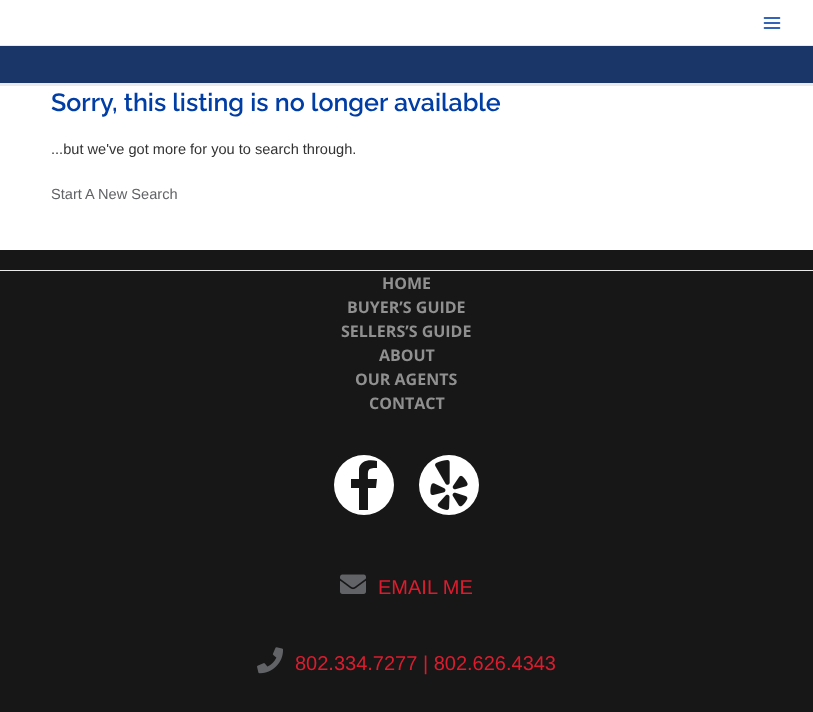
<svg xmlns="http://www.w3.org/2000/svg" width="813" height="712">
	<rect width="100%" height="100%" fill="#FFFFFF" />
	<rect x="0" y="45" width="813" height="1" fill="#EAEAEA" />
	<image x="763" y="17" width="18" height="12" href="assets/img1.png" />
	<rect x="0" y="46" width="813" height="37" fill="#1A3668" />
	<rect x="0" y="83" width="813" height="3" fill="#EAEAEA" />
	<text x="51" y="111" font-family="Raleway" font-size="25" font-weight="600" fill="#003DA5">Sorry, this listing is no longer available</text>
	<text x="51" y="154" font-family="Liberation Sans" font-size="14.6" fill="#333333">...but we've got more for you to search through.</text>
	<text x="51" y="199" font-family="Liberation Sans" font-size="14.6" fill="#626366">Start A New Search</text>
	<rect x="0" y="250" width="813" height="462" fill="#171717" />
	<rect x="0" y="270" width="813" height="1" fill="#EAEAEA" />
	<g font-family="Open Sans" font-size="16" font-weight="700" fill="#909090">
		<text x="382" y="289">HOME</text>
		<text x="347" y="313">BUYER’S GUIDE</text>
		<text x="341" y="337">SELLERS’S GUIDE</text>
		<text x="379" y="361">ABOUT</text>
		<text x="355" y="385">OUR AGENTS</text>
		<text x="369" y="409">CONTACT</text>
	</g>
	<circle cx="364" cy="485" r="30" fill="#FFFFFF" />
	<path d="M376 488L377 479H368C368 470 367 468 377 468V461C370 459 360 460 359 469V479H351V488H359V510H368V488Z" fill="#171717" />
	<circle cx="449" cy="485" r="30" fill="#FFFFFF" />
	<image x="430" y="460" width="38" height="50" href="assets/img2.png" />
	<image x="340" y="574" width="26" height="20" href="assets/img3.png" />
	<text x="378" y="594" font-family="Liberation Sans" font-size="20" fill="#DC1C2E">EMAIL ME</text>
	<image x="257" y="647" width="26" height="27" href="assets/img4.png" />
	<text x="295" y="670" font-family="Liberation Sans" font-size="20" fill="#DC1C2E">802.334.7277 | 802.626.4343</text>
</svg>
